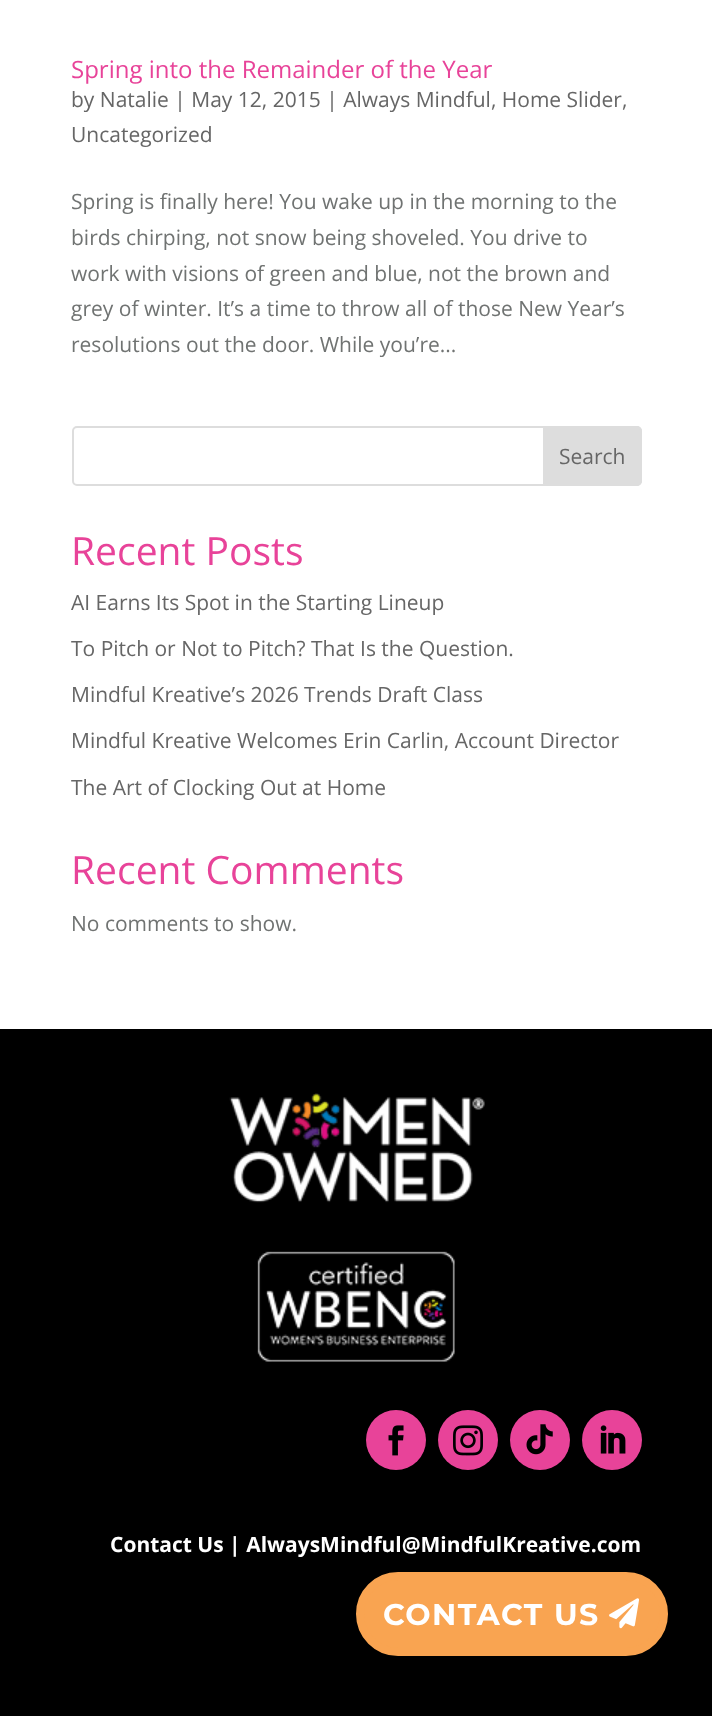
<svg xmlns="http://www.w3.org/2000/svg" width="712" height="1716">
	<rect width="100%" height="100%" fill="#FFFFFF" />
	<text x="71" y="78" font-family="Open Sans" font-size="24" fill="#E84399">Spring into the Remainder of the Year</text>
	<g font-family="Open Sans" font-size="21" fill="#666666">
		<text x="71" y="107">by Natalie | May 12, 2015 | Always Mindful, Home Slider,</text>
		<text x="71" y="142">Uncategorized</text>
	</g>
	<g font-family="Open Sans" font-size="21" fill="#707372">
		<text x="71" y="209">Spring is finally here! You wake up in the morning to the</text>
		<text x="71" y="245">birds chirping, not snow being shoveled. You drive to</text>
		<text x="71" y="281">work with visions of green and blue, not the brown and</text>
		<text x="71" y="316">grey of winter. It’s a time to throw all of those New Year’s</text>
		<text x="71" y="352">resolutions out the door. While you’re...</text>
	</g>
	<rect x="73" y="427" width="568" height="58" rx="4" fill="none" stroke="#DDDDDD" stroke-width="2" />
	<path d="M544 427H637C639 427 641 429 641 431V481C641 483 639 485 637 485H544Z" fill="#DDDDDD" stroke="#DDDDDD" stroke-width="2" />
	<text x="559" y="464" font-family="Open Sans" font-size="21" fill="#666666">Search</text>
	<text x="71" y="565" font-family="Open Sans" font-size="39" fill="#E84399">Recent Posts</text>
	<g font-family="Open Sans" font-size="21" fill="#666666">
		<text x="71" y="610">AI Earns Its Spot in the Starting Lineup</text>
		<text x="71" y="656">To Pitch or Not to Pitch? That Is the Question.</text>
		<text x="71" y="702">Mindful Kreative’s 2026 Trends Draft Class</text>
		<text x="71" y="748">Mindful Kreative Welcomes Erin Carlin, Account Director</text>
		<text x="71" y="795">The Art of Clocking Out at Home</text>
	</g>
	<text x="71" y="884" font-family="Open Sans" font-size="39" fill="#E84399">Recent Comments</text>
	<text x="71" y="931" font-family="Open Sans" font-size="21" fill="#707372">No comments to show.</text>
	<rect x="0" y="1029" width="712" height="687" fill="#000000" />
	<image x="229" y="1093" width="256" height="110" href="assets/img1.png" />
	<image x="257" y="1251" width="198" height="111" href="assets/img2.png" />
	<circle cx="396" cy="1440" r="30" fill="#E84399" />
	<image x="388" y="1425" width="16" height="31" href="assets/img3.png" />
	<circle cx="468" cy="1440" r="30" fill="#E84399" />
	<image x="453" y="1425" width="30" height="31" href="assets/img4.png" />
	<circle cx="540" cy="1440" r="30" fill="#E84399" />
	<image x="526" y="1424" width="27" height="31" href="assets/img5.png" />
	<circle cx="612" cy="1440" r="30" fill="#E84399" />
	<image x="600" y="1425" width="26" height="29" href="assets/img6.png" />
	<text x="110" y="1552" font-family="Open Sans" font-size="21" font-weight="700" fill="#FFFFFF">Contact Us | AlwaysMindful@MindfulKreative.com</text>
	<rect x="360" y="1576" width="304" height="76" rx="38" fill="#F9A451" stroke="#F9A451" stroke-width="8" />
	<text x="383" y="1625" font-family="Montserrat" font-size="30" font-weight="700" letter-spacing="1.5" fill="#FFFFFF">CONTACT US</text>
	<image x="609" y="1598" width="30" height="31" href="assets/img7.png" />
</svg>
